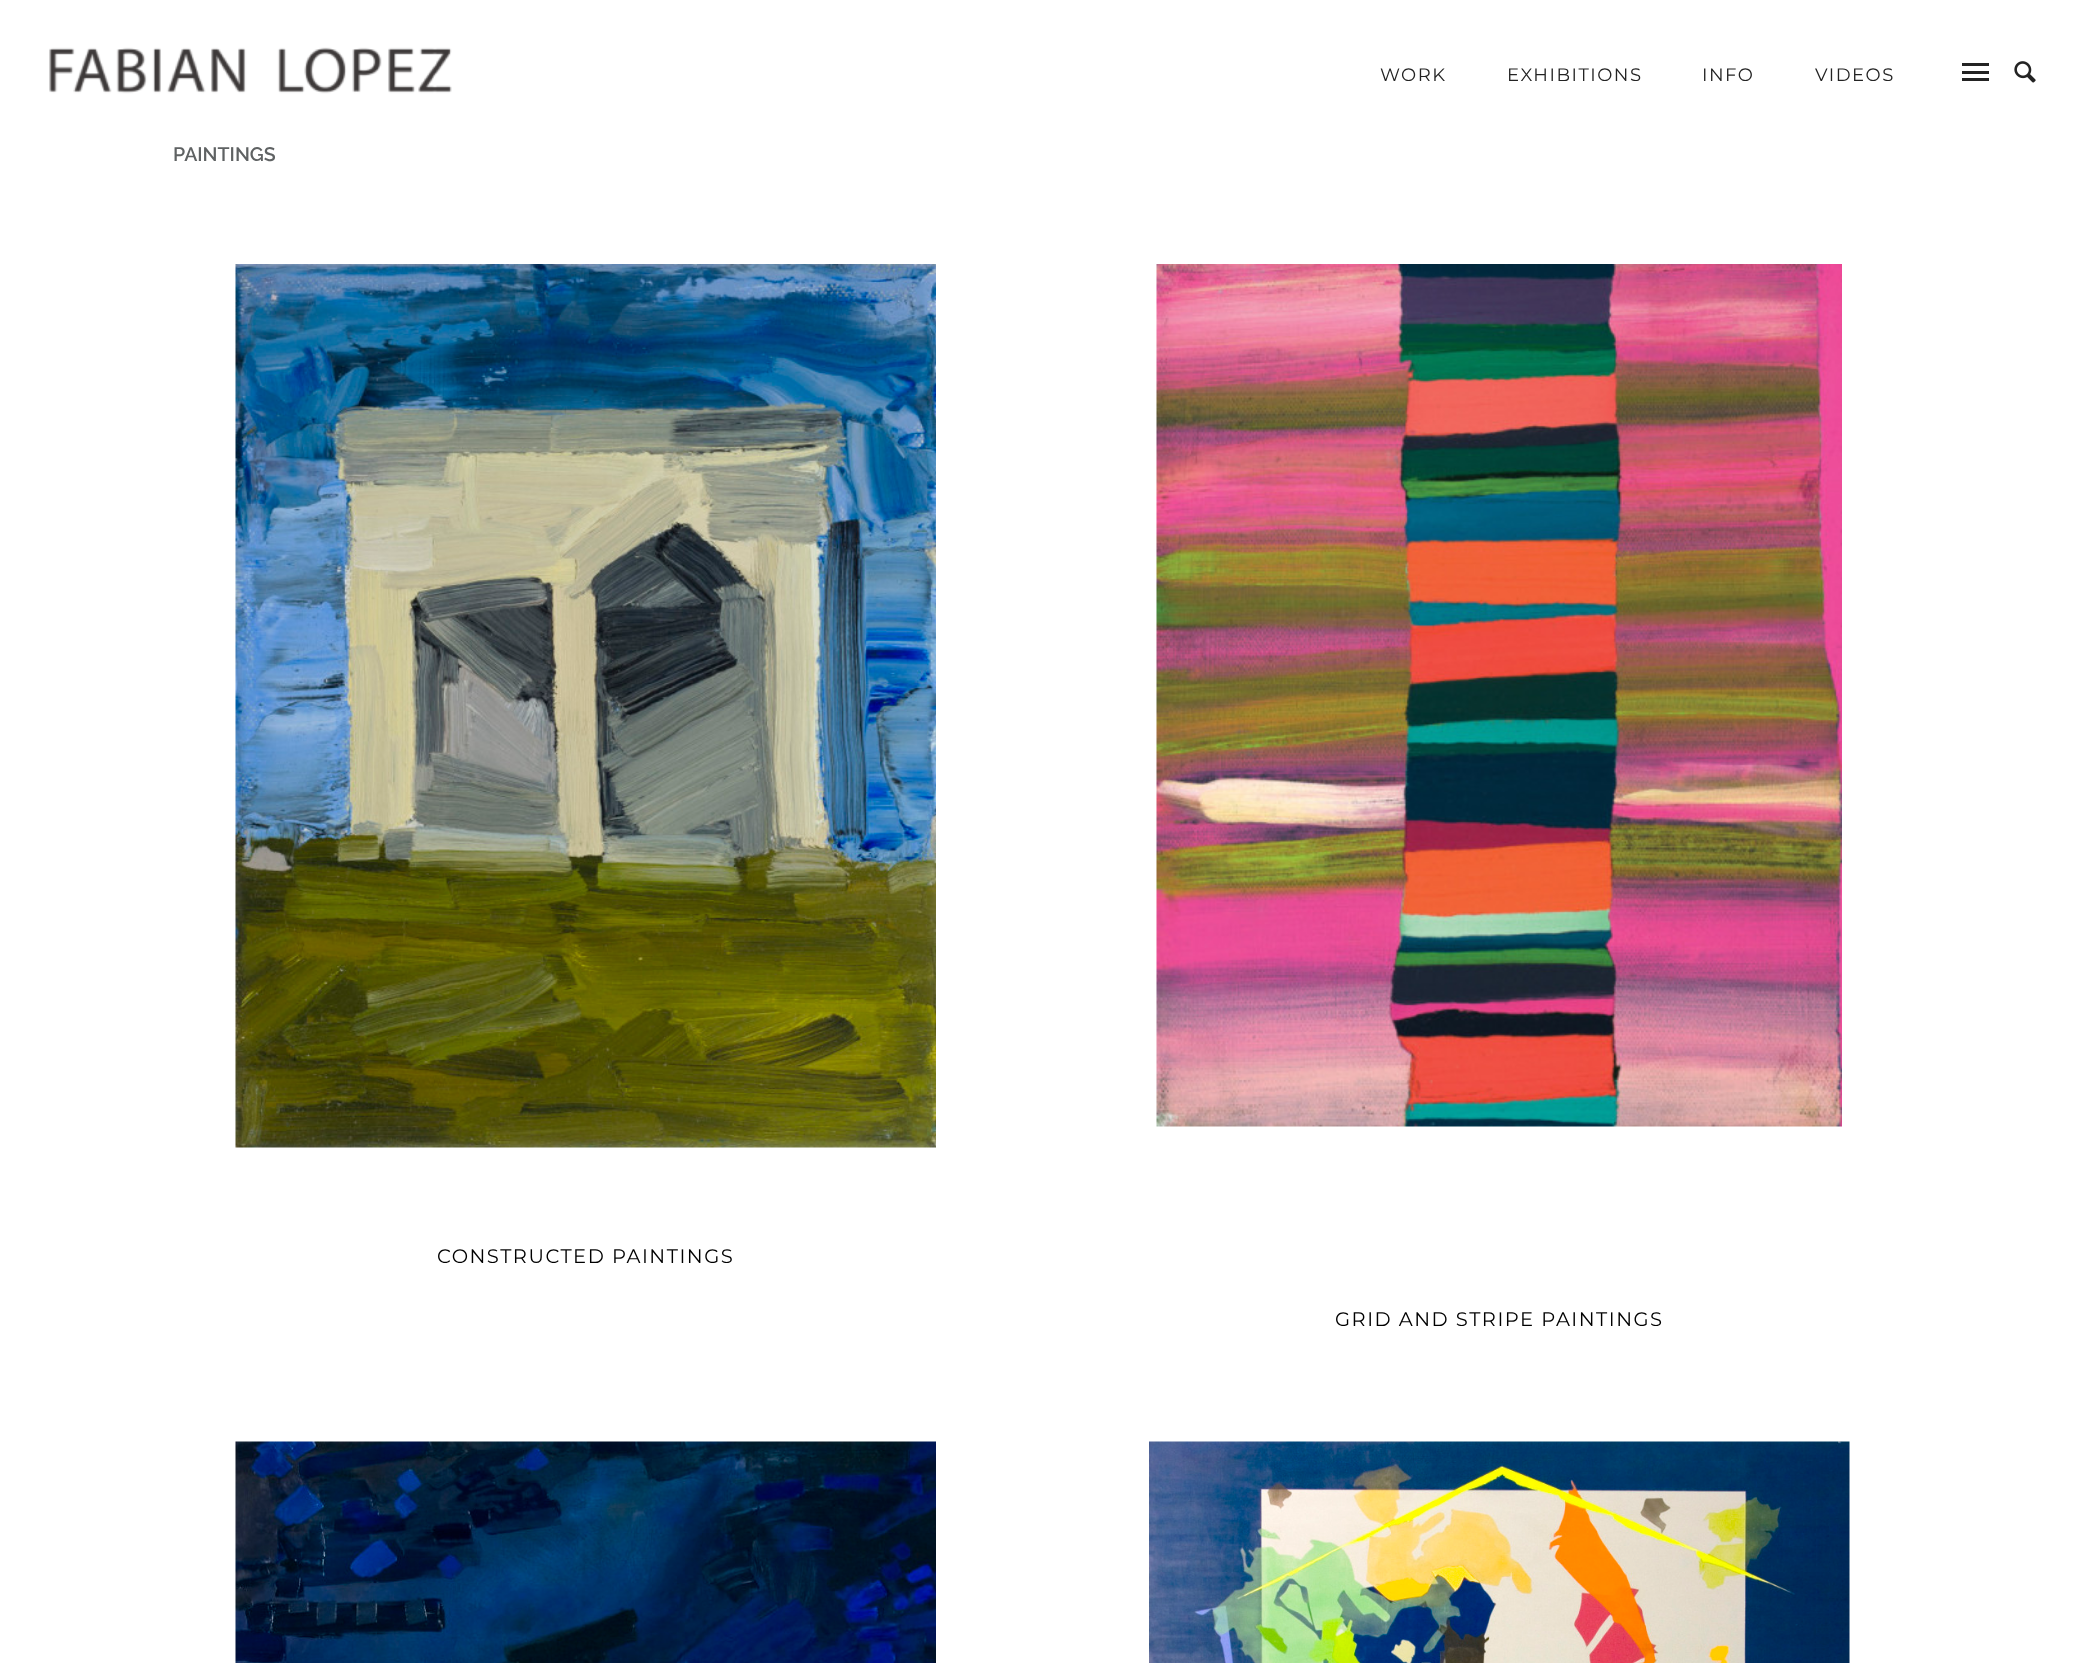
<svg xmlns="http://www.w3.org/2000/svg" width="2084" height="1663">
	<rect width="100%" height="100%" fill="#FFFFFF" />
	<image x="49" y="47" width="403" height="47" href="assets/img1.png" />
	<g font-family="Montserrat" font-size="18" letter-spacing="1.5" fill="#232323">
		<text x="1380" y="81">WORK</text>
		<text x="1507" y="81">EXHIBITIONS</text>
		<text x="1702" y="81">INFO</text>
		<text x="1815" y="81">VIDEOS</text>
	</g>
	<rect x="1962" y="71" width="27" height="3" fill="#232323" />
	<rect x="1962" y="63" width="27" height="3" fill="#232323" />
	<rect x="1962" y="78" width="27" height="3" fill="#232323" />
	<image x="2014" y="61" width="22" height="22" href="assets/img2.png" />
	<text x="173" y="161" font-family="Raleway" font-size="19.5" font-weight="600" fill="#5F6263">PAINTINGS</text>
	<image x="235" y="264" width="701" height="884" href="assets/img3.png" />
	<text x="437" y="1263" font-family="Montserrat" font-size="19.5" letter-spacing="1.5" fill="#000000">CONSTRUCTED PAINTINGS</text>
	<image x="1156" y="264" width="686" height="863" href="assets/img4.png" />
	<text x="1335" y="1326" font-family="Montserrat" font-size="19.5" letter-spacing="1.5" fill="#000000">GRID AND STRIPE PAINTINGS</text>
	<image x="235" y="1441" width="701" height="222" href="assets/img5.png" />
	<image x="1149" y="1441" width="701" height="222" href="assets/img6.png" />
</svg>
